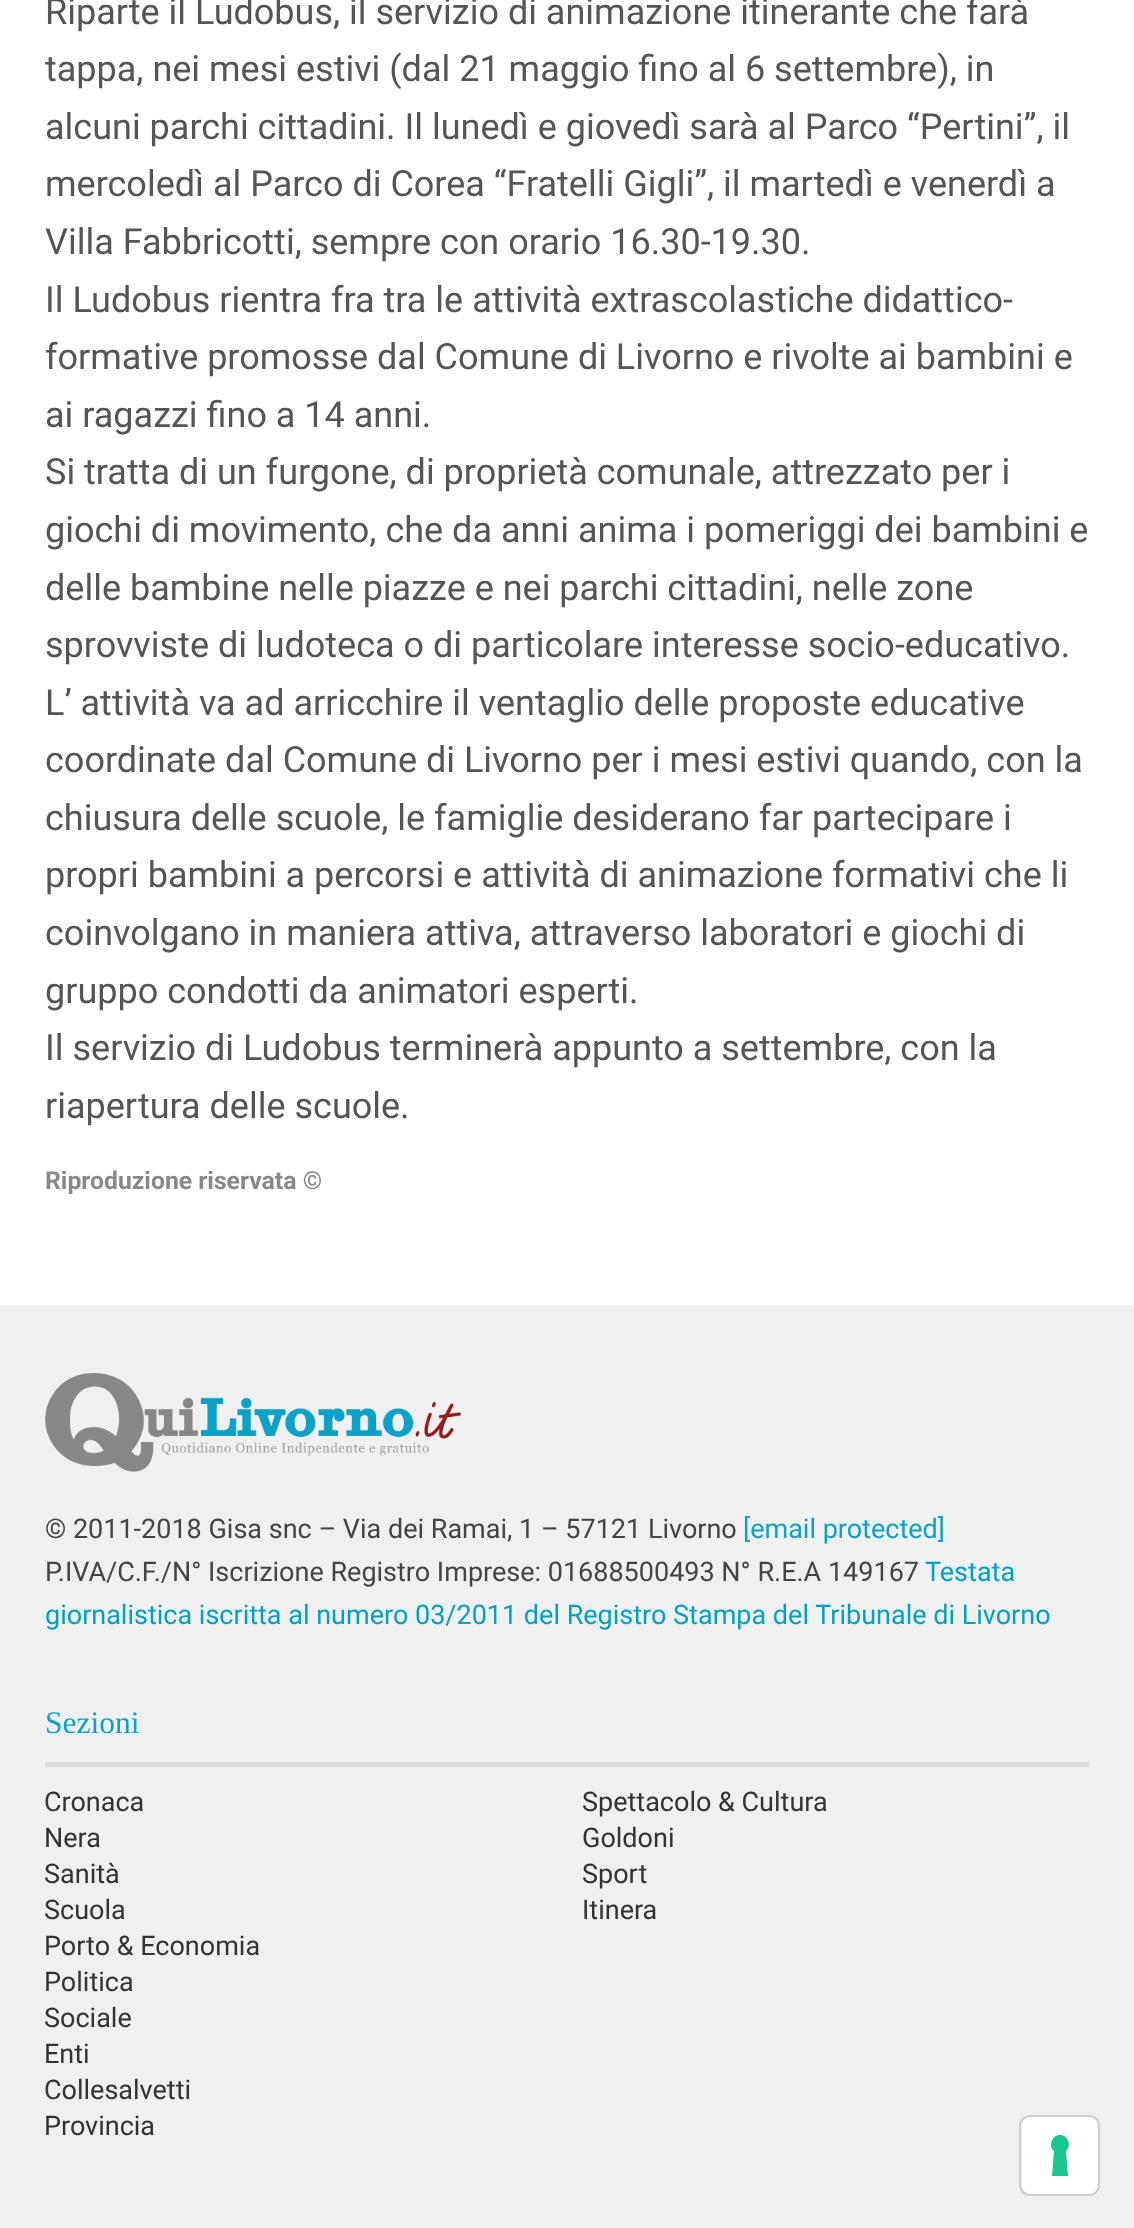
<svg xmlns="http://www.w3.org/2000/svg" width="1134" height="2228">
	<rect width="100%" height="100%" fill="#FFFFFF" />
	<g font-family="Roboto" font-size="36" fill="#555555">
		<text x="45" y="24">Riparte il Ludobus, il servizio di animazione itinerante che farà</text>
		<text x="45" y="81">tappa, nei mesi estivi (dal 21 maggio fino al 6 settembre), in</text>
		<text x="45" y="139">alcuni parchi cittadini. Il lunedì e giovedì sarà al Parco “Pertini”, il</text>
		<text x="45" y="196">mercoledì al Parco di Corea “Fratelli Gigli”, il martedì e venerdì a</text>
		<text x="45" y="254">Villa Fabbricotti, sempre con orario 16.30-19.30.</text>
		<text x="45" y="312">Il Ludobus rientra fra tra le attività extrascolastiche didattico-</text>
		<text x="45" y="369">formative promosse dal Comune di Livorno e rivolte ai bambini e</text>
		<text x="45" y="427">ai ragazzi fino a 14 anni.</text>
		<text x="45" y="484">Si tratta di un furgone, di proprietà comunale, attrezzato per i</text>
		<text x="45" y="542">giochi di movimento, che da anni anima i pomeriggi dei bambini e</text>
		<text x="45" y="600">delle bambine nelle piazze e nei parchi cittadini, nelle zone</text>
		<text x="45" y="657">sprovviste di ludoteca o di particolare interesse socio-educativo.</text>
		<text x="45" y="715">L’ attività va ad arricchire il ventaglio delle proposte educative</text>
		<text x="45" y="772">coordinate dal Comune di Livorno per i mesi estivi quando, con la</text>
		<text x="45" y="830">chiusura delle scuole, le famiglie desiderano far partecipare i</text>
		<text x="45" y="887">propri bambini a percorsi e attività di animazione formativi che li</text>
		<text x="45" y="945">coinvolgano in maniera attiva, attraverso laboratori e giochi di</text>
		<text x="45" y="1003">gruppo condotti da animatori esperti.</text>
		<text x="45" y="1060">Il servizio di Ludobus terminerà appunto a settembre, con la</text>
		<text x="45" y="1118">riapertura delle scuole.</text>
	</g>
	<text x="45" y="1189" font-family="Roboto" font-size="24.75" font-weight="700" fill="#888888">Riproduzione riservata ©</text>
	<rect x="0" y="1305" width="1134" height="923" fill="#F0F0F0" />
	<image x="45" y="1373" width="416" height="99" href="assets/img1.png" />
	<text x="45" y="1538" font-family="Roboto" font-size="27" fill="#444444">© 2011-2018 Gisa snc – Via dei Ramai, 1 – 57121 Livorno</text>
	<text x="743" y="1538" font-family="Roboto" font-size="27" fill="#0CA2C8">[email protected]</text>
	<text x="45" y="1581" font-family="Roboto" font-size="27" fill="#444444">P.IVA/C.F./N° Iscrizione Registro Imprese: 01688500493 N° R.E.A 149167</text>
	<g font-family="Roboto" font-size="27" fill="#00A1C5">
		<text x="925" y="1581">Testata</text>
		<text x="45" y="1624">giornalistica iscritta al numero 03/2011 del Registro Stampa del Tribunale di Livorno</text>
	</g>
	<rect x="45" y="1762" width="1044" height="5" fill="#DDDDDD" />
	<text x="45" y="1733" font-family="Liberation Serif" font-size="31.5" fill="#0CA2C8">Sezioni</text>
	<g font-family="Roboto" font-size="27" fill="#333333">
		<text x="44" y="1811">Cronaca</text>
		<text x="44" y="1847">Nera</text>
		<text x="44" y="1883">Sanità</text>
		<text x="44" y="1919">Scuola</text>
		<text x="44" y="1955">Porto &amp; Economia</text>
		<text x="44" y="1991">Politica</text>
		<text x="44" y="2027">Sociale</text>
		<text x="44" y="2063">Enti</text>
		<text x="44" y="2099">Collesalvetti</text>
		<text x="44" y="2135">Provincia</text>
		<text x="582" y="1811">Spettacolo &amp; Cultura</text>
		<text x="582" y="1847">Goldoni</text>
		<text x="582" y="1883">Sport</text>
		<text x="582" y="1919">Itinera</text>
	</g>
	<rect x="1020" y="2116" width="79" height="79" rx="10" fill="none" stroke="#CCCCCC" stroke-width="2" />
	<rect x="1022" y="2117" width="76" height="77" rx="9" fill="#FFFFFF" />
	<path d="M1060 2135C1068 2135 1072 2146 1066 2151L1068 2176H1052L1054 2151C1048 2146 1052 2135 1060 2135Z" fill="#1CC691" fill-rule="evenodd" />
</svg>
